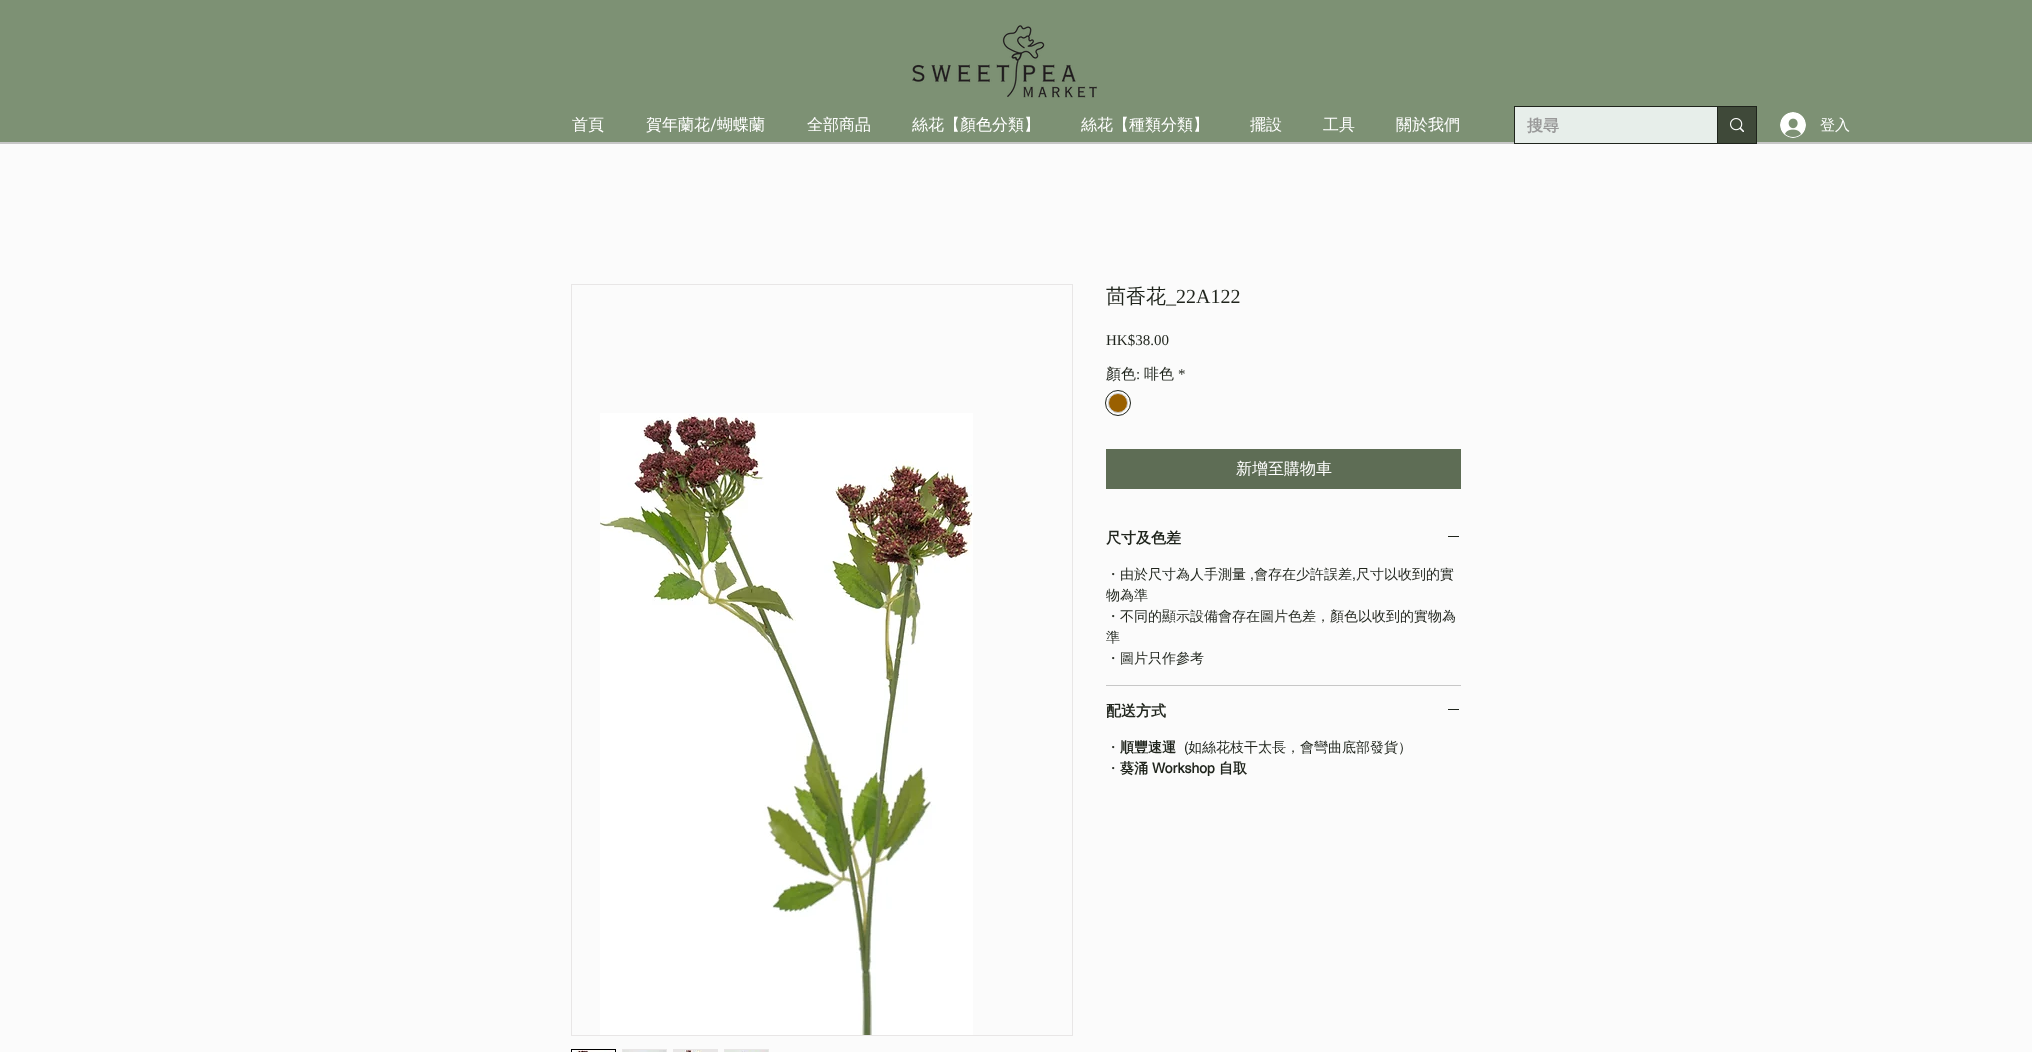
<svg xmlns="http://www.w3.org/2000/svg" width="2032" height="1052">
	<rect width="100%" height="100%" fill="#FBFBFB" />
	<rect x="0" y="0" width="2032" height="142" fill="#7D9174" />
	<rect x="0" y="142" width="2032" height="2" fill="#C7C7C7" />
	<image x="912" y="25" width="185" height="73" href="assets/img1.png" />
	<g font-family="WenQuanYi Zen Hei" font-size="16" font-weight="500" fill="#FFFFFF">
		<text x="572" y="130">首頁</text>
		<text x="646" y="130">賀年蘭花</text>
	</g>
	<text x="710" y="130" font-family="Syne" font-size="16" fill="#FFFFFF">/</text>
	<g font-family="WenQuanYi Zen Hei" font-size="16" font-weight="500" fill="#FFFFFF">
		<text x="717" y="130">蝴蝶蘭</text>
		<text x="807" y="130">全部商品</text>
		<text x="912" y="130">絲花【顏色分類】</text>
		<text x="1081" y="130">絲花【種類分類】</text>
		<text x="1250" y="130">擺設</text>
		<text x="1323" y="130">工具</text>
		<text x="1396" y="130">關於我們</text>
	</g>
	<rect x="1514.5" y="106.5" width="242" height="37" fill="none" stroke="#1F241C" />
	<rect x="1515" y="107" width="202" height="36" fill="#E7EEEA" />
	<text x="1527" y="131" font-family="WenQuanYi Zen Hei" font-size="16" font-weight="700" fill="#999999">搜尋</text>
	<rect x="1718" y="107" width="38" height="36" fill="#3F4939" />
	<rect x="1717" y="107" width="1" height="36" fill="#1F241C" />
	<image x="1730" y="118" width="14" height="14" href="assets/img2.png" />
	<image x="1780" y="112" width="26" height="26" href="assets/img3.png" />
	<text x="1820" y="130" font-family="WenQuanYi Zen Hei" font-size="15" font-weight="500" fill="#FFFFFF">登入</text>
	<rect x="571.5" y="284.5" width="501" height="751" fill="none" stroke="#E8E6E6" />
	<image x="600" y="413" width="373" height="622" href="assets/img4.png" />
	<rect x="571.5" y="1049.5" width="44" height="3" fill="none" stroke="#000000" />
	<image x="572" y="1050" width="43" height="2" href="assets/img5.png" />
	<rect x="622" y="1049" width="45" height="3" fill="#E8E6E6" />
	<image x="623" y="1050" width="43" height="2" href="assets/img6.png" />
	<rect x="673" y="1049" width="45" height="3" fill="#E8E6E6" />
	<image x="682" y="1050" width="20" height="2" href="assets/img7.png" />
	<rect x="724" y="1049" width="45" height="3" fill="#E8E6E6" />
	<image x="725" y="1050" width="43" height="2" href="assets/img8.png" />
	<text x="1106" y="303" font-family="WenQuanYi Zen Hei" font-size="20" font-weight="500" fill="#1F241C">茴香花</text>
	<text x="1166" y="303" font-family="Liberation Serif" font-size="20" fill="#1F241C">_22A122</text>
	<text x="1106" y="345" font-family="Liberation Serif" font-size="15" fill="#1F241C">HK$38.00</text>
	<text x="1106" y="379" font-family="WenQuanYi Zen Hei" font-size="15" font-weight="500" fill="#1F241C">顏色</text>
	<text x="1136" y="379" font-family="Liberation Serif" font-size="15" fill="#1F241C">:</text>
	<text x="1144" y="379" font-family="WenQuanYi Zen Hei" font-size="15" font-weight="500" fill="#1F241C">啡色</text>
	<text x="1178" y="379" font-family="Liberation Serif" font-size="15" fill="#1F241C">*</text>
	<circle cx="1118" cy="403" r="12.5" fill="none" stroke="#1F241C" />
	<circle cx="1118" cy="403" r="9.5" fill="#9A6000" stroke="#C9C9C9" />
	<rect x="1106" y="449" width="355" height="40" fill="#5E6D55" />
	<text x="1236" y="474" font-family="WenQuanYi Zen Hei" font-size="16" font-weight="500" fill="#FFFFFF">新增至購物車</text>
	<rect x="1106" y="685" width="355" height="1" fill="#C7C7C7" />
	<text x="1106" y="543" font-family="WenQuanYi Zen Hei" font-size="15" font-weight="700" fill="#1F241C">尺寸及色差</text>
	<rect x="1448" y="536" width="11" height="1" fill="#1F241C" />
	<text x="1106" y="579" font-family="WenQuanYi Zen Hei" font-size="14" font-weight="500" fill="#1F241C">・由於尺寸為人手測量</text>
	<text x="1250" y="579" font-family="helvetica" font-size="14" fill="#1F241C">,</text>
	<text x="1254" y="579" font-family="WenQuanYi Zen Hei" font-size="14" font-weight="500" fill="#1F241C">會存在少許誤差</text>
	<text x="1352" y="579" font-family="helvetica" font-size="14" fill="#1F241C">,</text>
	<g font-family="WenQuanYi Zen Hei" font-size="14" font-weight="500" fill="#1F241C">
		<text x="1356" y="579">尺寸以收到的實</text>
		<text x="1106" y="600">物為準</text>
		<text x="1106" y="621">・不同的顯示設備會存在圖片色差，顏色以收到的實物為</text>
		<text x="1106" y="642">準</text>
		<text x="1106" y="663">・圖片只作參考</text>
	</g>
	<text x="1106" y="716" font-family="WenQuanYi Zen Hei" font-size="15" font-weight="700" fill="#1F241C">配送方式</text>
	<rect x="1448" y="709" width="11" height="1" fill="#1F241C" />
	<text x="1106" y="752" font-family="WenQuanYi Zen Hei" font-size="14" font-weight="500" fill="#1F241C">・</text>
	<text x="1120" y="752" font-family="WenQuanYi Zen Hei" font-size="14" font-weight="700" fill="#1F241C">順豐速運</text>
	<text x="1184" y="752" font-family="helvetica" font-size="14" fill="#1F241C">(</text>
	<g font-family="WenQuanYi Zen Hei" font-size="14" font-weight="500" fill="#1F241C">
		<text x="1188" y="752">如絲花枝干太長，會彎曲底部發貨）</text>
		<text x="1106" y="773">・</text>
	</g>
	<text x="1120" y="773" font-family="WenQuanYi Zen Hei" font-size="14" font-weight="700" fill="#1F241C">葵涌</text>
	<text x="1152" y="773" font-family="helvetica" font-size="14" font-weight="700" fill="#1F241C">Workshop</text>
	<text x="1219" y="773" font-family="WenQuanYi Zen Hei" font-size="14" font-weight="700" fill="#1F241C">自取</text>
</svg>
